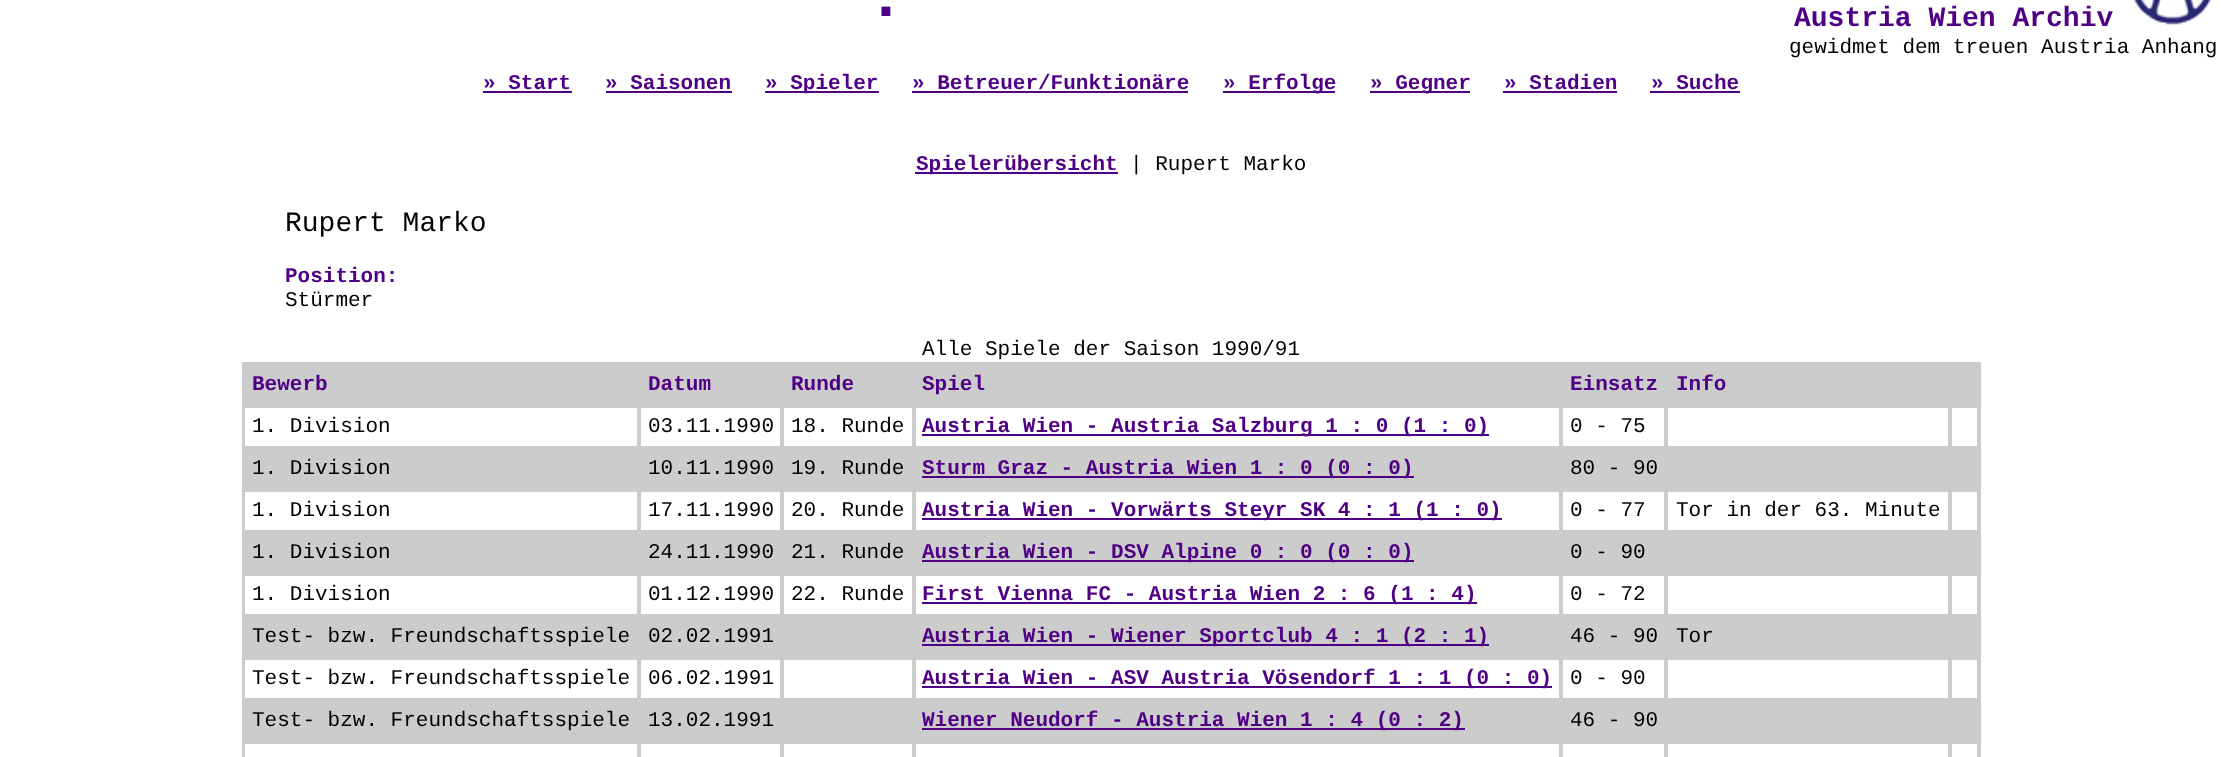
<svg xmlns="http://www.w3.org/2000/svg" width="2221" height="757">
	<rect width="100%" height="100%" fill="#FFFFFF" />
	<text x="867" y="16" font-family="Liberation Mono" font-size="63" font-weight="700" fill="#4F0084">.</text>
	<text x="1794" y="26" font-family="Liberation Mono" font-size="28" font-weight="700" fill="#4F0084">Austria Wien Archiv</text>
	<image x="2134" y="0" width="77" height="25" href="assets/img1.png" />
	<text x="1789" y="53" font-family="Liberation Mono" font-size="21" fill="#000000">gewidmet dem treuen Austria Anhang</text>
	<text x="483" y="89" font-family="Liberation Mono" font-size="21" font-weight="700" fill="#4F0084">» Start</text>
	<rect x="483" y="91" width="89" height="2" fill="#4F0084" />
	<text x="605" y="89" font-family="Liberation Mono" font-size="21" font-weight="700" fill="#4F0084">» Saisonen</text>
	<rect x="606" y="91" width="126" height="2" fill="#4F0084" />
	<rect x="765" y="91" width="114" height="2" fill="#4F0084" />
	<g font-family="Liberation Mono" font-size="21" font-weight="700" fill="#4F0084">
		<text x="765" y="89">» Spieler</text>
		<text x="912" y="89">» Betreuer/Funktionäre</text>
	</g>
	<rect x="912" y="91" width="276" height="2" fill="#4F0084" />
	<rect x="1223" y="91" width="112" height="2" fill="#4F0084" />
	<text x="1223" y="89" font-family="Liberation Mono" font-size="21" font-weight="700" fill="#4F0084">» Erfolge</text>
	<rect x="1370" y="91" width="100" height="2" fill="#4F0084" />
	<g font-family="Liberation Mono" font-size="21" font-weight="700" fill="#4F0084">
		<text x="1370" y="89">» Gegner</text>
		<text x="1504" y="89">» Stadien</text>
	</g>
	<rect x="1503" y="91" width="114" height="2" fill="#4F0084" />
	<text x="1651" y="89" font-family="Liberation Mono" font-size="21" font-weight="700" fill="#4F0084">» Suche</text>
	<rect x="1650" y="91" width="90" height="2" fill="#4F0084" />
	<rect x="915" y="172" width="203" height="2" fill="#4F0084" />
	<text x="916" y="170" font-family="Liberation Mono" font-size="21" font-weight="700" fill="#4F0084">Spielerübersicht</text>
	<text x="1130" y="170" font-family="Liberation Mono" font-size="21" fill="#000000">| Rupert Marko</text>
	<text x="285" y="231" font-family="Liberation Mono" font-size="28" fill="#000000">Rupert Marko</text>
	<text x="285" y="282" font-family="Liberation Mono" font-size="21" font-weight="700" fill="#4F0084">Position:</text>
	<g font-family="Liberation Mono" font-size="21" fill="#000000">
		<text x="285" y="306">Stürmer</text>
		<text x="922" y="355">Alle Spiele der Saison 1990/91</text>
	</g>
	<rect x="243" y="363" width="1737" height="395" fill="none" stroke="#CCCCCC" stroke-width="2" />
	<rect x="244" y="364" width="1735" height="42" fill="#CCCCCC" />
	<g font-family="Liberation Mono" font-size="21" font-weight="700" fill="#4F0084">
		<text x="252" y="390">Bewerb</text>
		<text x="648" y="390">Datum</text>
		<text x="791" y="390">Runde</text>
		<text x="922" y="390">Spiel</text>
		<text x="1570" y="390">Einsatz</text>
		<text x="1676" y="390">Info</text>
	</g>
	<rect x="244" y="407" width="394" height="40" fill="none" stroke="#CCCCCC" stroke-width="2" />
	<text x="252" y="432" font-family="Liberation Mono" font-size="21" fill="#000000">1. Division</text>
	<rect x="640" y="407" width="141" height="40" fill="none" stroke="#CCCCCC" stroke-width="2" />
	<text x="648" y="432" font-family="Liberation Mono" font-size="21" fill="#000000">03.11.1990</text>
	<rect x="783" y="407" width="130" height="40" fill="none" stroke="#CCCCCC" stroke-width="2" />
	<text x="791" y="432" font-family="Liberation Mono" font-size="21" fill="#000000">18. Runde</text>
	<rect x="915" y="407" width="645" height="40" fill="none" stroke="#CCCCCC" stroke-width="2" />
	<rect x="922" y="434" width="567" height="2" fill="#4F0084" />
	<text x="922" y="432" font-family="Liberation Mono" font-size="21" font-weight="700" fill="#4F0084">Austria Wien - Austria Salzburg 1 : 0 (1 : 0)</text>
	<rect x="1562" y="407" width="103" height="40" fill="none" stroke="#CCCCCC" stroke-width="2" />
	<text x="1570" y="432" font-family="Liberation Mono" font-size="21" fill="#000000">0 - 75</text>
	<rect x="1667" y="407" width="282" height="40" fill="none" stroke="#CCCCCC" stroke-width="2" />
	<rect x="1951" y="407" width="27" height="40" fill="none" stroke="#CCCCCC" stroke-width="2" />
	<rect x="244" y="448" width="1735" height="42" fill="#CCCCCC" />
	<g font-family="Liberation Mono" font-size="21" fill="#000000">
		<text x="252" y="474">1. Division</text>
		<text x="648" y="474">10.11.1990</text>
		<text x="791" y="474">19. Runde</text>
	</g>
	<rect x="922" y="476" width="492" height="2" fill="#4F0084" />
	<text x="922" y="474" font-family="Liberation Mono" font-size="21" font-weight="700" fill="#4F0084">Sturm Graz - Austria Wien 1 : 0 (0 : 0)</text>
	<text x="1570" y="474" font-family="Liberation Mono" font-size="21" fill="#000000">80 - 90</text>
	<rect x="244" y="491" width="394" height="40" fill="none" stroke="#CCCCCC" stroke-width="2" />
	<text x="252" y="516" font-family="Liberation Mono" font-size="21" fill="#000000">1. Division</text>
	<rect x="640" y="491" width="141" height="40" fill="none" stroke="#CCCCCC" stroke-width="2" />
	<text x="648" y="516" font-family="Liberation Mono" font-size="21" fill="#000000">17.11.1990</text>
	<rect x="783" y="491" width="130" height="40" fill="none" stroke="#CCCCCC" stroke-width="2" />
	<text x="791" y="516" font-family="Liberation Mono" font-size="21" fill="#000000">20. Runde</text>
	<rect x="915" y="491" width="645" height="40" fill="none" stroke="#CCCCCC" stroke-width="2" />
	<rect x="922" y="518" width="580" height="2" fill="#4F0084" />
	<text x="922" y="516" font-family="Liberation Mono" font-size="21" font-weight="700" fill="#4F0084">Austria Wien - Vorwärts Steyr SK 4 : 1 (1 : 0)</text>
	<rect x="1562" y="491" width="103" height="40" fill="none" stroke="#CCCCCC" stroke-width="2" />
	<text x="1570" y="516" font-family="Liberation Mono" font-size="21" fill="#000000">0 - 77</text>
	<rect x="1667" y="491" width="282" height="40" fill="none" stroke="#CCCCCC" stroke-width="2" />
	<text x="1676" y="516" font-family="Liberation Mono" font-size="21" fill="#000000">Tor in der 63. Minute</text>
	<rect x="1951" y="491" width="27" height="40" fill="none" stroke="#CCCCCC" stroke-width="2" />
	<rect x="244" y="532" width="1735" height="42" fill="#CCCCCC" />
	<g font-family="Liberation Mono" font-size="21" fill="#000000">
		<text x="252" y="558">1. Division</text>
		<text x="648" y="558">24.11.1990</text>
		<text x="791" y="558">21. Runde</text>
	</g>
	<rect x="922" y="560" width="492" height="2" fill="#4F0084" />
	<text x="922" y="558" font-family="Liberation Mono" font-size="21" font-weight="700" fill="#4F0084">Austria Wien - DSV Alpine 0 : 0 (0 : 0)</text>
	<text x="1570" y="558" font-family="Liberation Mono" font-size="21" fill="#000000">0 - 90</text>
	<rect x="244" y="575" width="394" height="40" fill="none" stroke="#CCCCCC" stroke-width="2" />
	<text x="252" y="600" font-family="Liberation Mono" font-size="21" fill="#000000">1. Division</text>
	<rect x="640" y="575" width="141" height="40" fill="none" stroke="#CCCCCC" stroke-width="2" />
	<text x="648" y="600" font-family="Liberation Mono" font-size="21" fill="#000000">01.12.1990</text>
	<rect x="783" y="575" width="130" height="40" fill="none" stroke="#CCCCCC" stroke-width="2" />
	<text x="791" y="600" font-family="Liberation Mono" font-size="21" fill="#000000">22. Runde</text>
	<rect x="915" y="575" width="645" height="40" fill="none" stroke="#CCCCCC" stroke-width="2" />
	<rect x="922" y="602" width="555" height="2" fill="#4F0084" />
	<text x="922" y="600" font-family="Liberation Mono" font-size="21" font-weight="700" fill="#4F0084">First Vienna FC - Austria Wien 2 : 6 (1 : 4)</text>
	<rect x="1562" y="575" width="103" height="40" fill="none" stroke="#CCCCCC" stroke-width="2" />
	<text x="1570" y="600" font-family="Liberation Mono" font-size="21" fill="#000000">0 - 72</text>
	<rect x="1667" y="575" width="282" height="40" fill="none" stroke="#CCCCCC" stroke-width="2" />
	<rect x="1951" y="575" width="27" height="40" fill="none" stroke="#CCCCCC" stroke-width="2" />
	<rect x="244" y="616" width="1735" height="42" fill="#CCCCCC" />
	<g font-family="Liberation Mono" font-size="21" fill="#000000">
		<text x="252" y="642">Test- bzw. Freundschaftsspiele</text>
		<text x="648" y="642">02.02.1991</text>
	</g>
	<rect x="922" y="644" width="567" height="2" fill="#4F0084" />
	<text x="922" y="642" font-family="Liberation Mono" font-size="21" font-weight="700" fill="#4F0084">Austria Wien - Wiener Sportclub 4 : 1 (2 : 1)</text>
	<g font-family="Liberation Mono" font-size="21" fill="#000000">
		<text x="1570" y="642">46 - 90</text>
		<text x="1676" y="642">Tor</text>
	</g>
	<rect x="244" y="659" width="394" height="40" fill="none" stroke="#CCCCCC" stroke-width="2" />
	<text x="252" y="684" font-family="Liberation Mono" font-size="21" fill="#000000">Test- bzw. Freundschaftsspiele</text>
	<rect x="640" y="659" width="141" height="40" fill="none" stroke="#CCCCCC" stroke-width="2" />
	<text x="648" y="684" font-family="Liberation Mono" font-size="21" fill="#000000">06.02.1991</text>
	<rect x="783" y="659" width="130" height="40" fill="none" stroke="#CCCCCC" stroke-width="2" />
	<rect x="915" y="659" width="645" height="40" fill="none" stroke="#CCCCCC" stroke-width="2" />
	<rect x="922" y="686" width="630" height="2" fill="#4F0084" />
	<text x="922" y="684" font-family="Liberation Mono" font-size="21" font-weight="700" fill="#4F0084">Austria Wien - ASV Austria Vösendorf 1 : 1 (0 : 0)</text>
	<rect x="1562" y="659" width="103" height="40" fill="none" stroke="#CCCCCC" stroke-width="2" />
	<text x="1570" y="684" font-family="Liberation Mono" font-size="21" fill="#000000">0 - 90</text>
	<rect x="1667" y="659" width="282" height="40" fill="none" stroke="#CCCCCC" stroke-width="2" />
	<rect x="1951" y="659" width="27" height="40" fill="none" stroke="#CCCCCC" stroke-width="2" />
	<rect x="244" y="700" width="1735" height="42" fill="#CCCCCC" />
	<g font-family="Liberation Mono" font-size="21" fill="#000000">
		<text x="252" y="726">Test- bzw. Freundschaftsspiele</text>
		<text x="648" y="726">13.02.1991</text>
	</g>
	<rect x="922" y="728" width="543" height="2" fill="#4F0084" />
	<text x="922" y="726" font-family="Liberation Mono" font-size="21" font-weight="700" fill="#4F0084">Wiener Neudorf - Austria Wien 1 : 4 (0 : 2)</text>
	<text x="1570" y="726" font-family="Liberation Mono" font-size="21" fill="#000000">46 - 90</text>
	<rect x="244" y="743" width="394" height="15" fill="none" stroke="#CCCCCC" stroke-width="2" />
	<rect x="640" y="743" width="141" height="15" fill="none" stroke="#CCCCCC" stroke-width="2" />
	<rect x="783" y="743" width="130" height="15" fill="none" stroke="#CCCCCC" stroke-width="2" />
	<rect x="915" y="743" width="645" height="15" fill="none" stroke="#CCCCCC" stroke-width="2" />
	<rect x="1562" y="743" width="103" height="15" fill="none" stroke="#CCCCCC" stroke-width="2" />
	<rect x="1667" y="743" width="282" height="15" fill="none" stroke="#CCCCCC" stroke-width="2" />
	<rect x="1951" y="743" width="27" height="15" fill="none" stroke="#CCCCCC" stroke-width="2" />
</svg>
